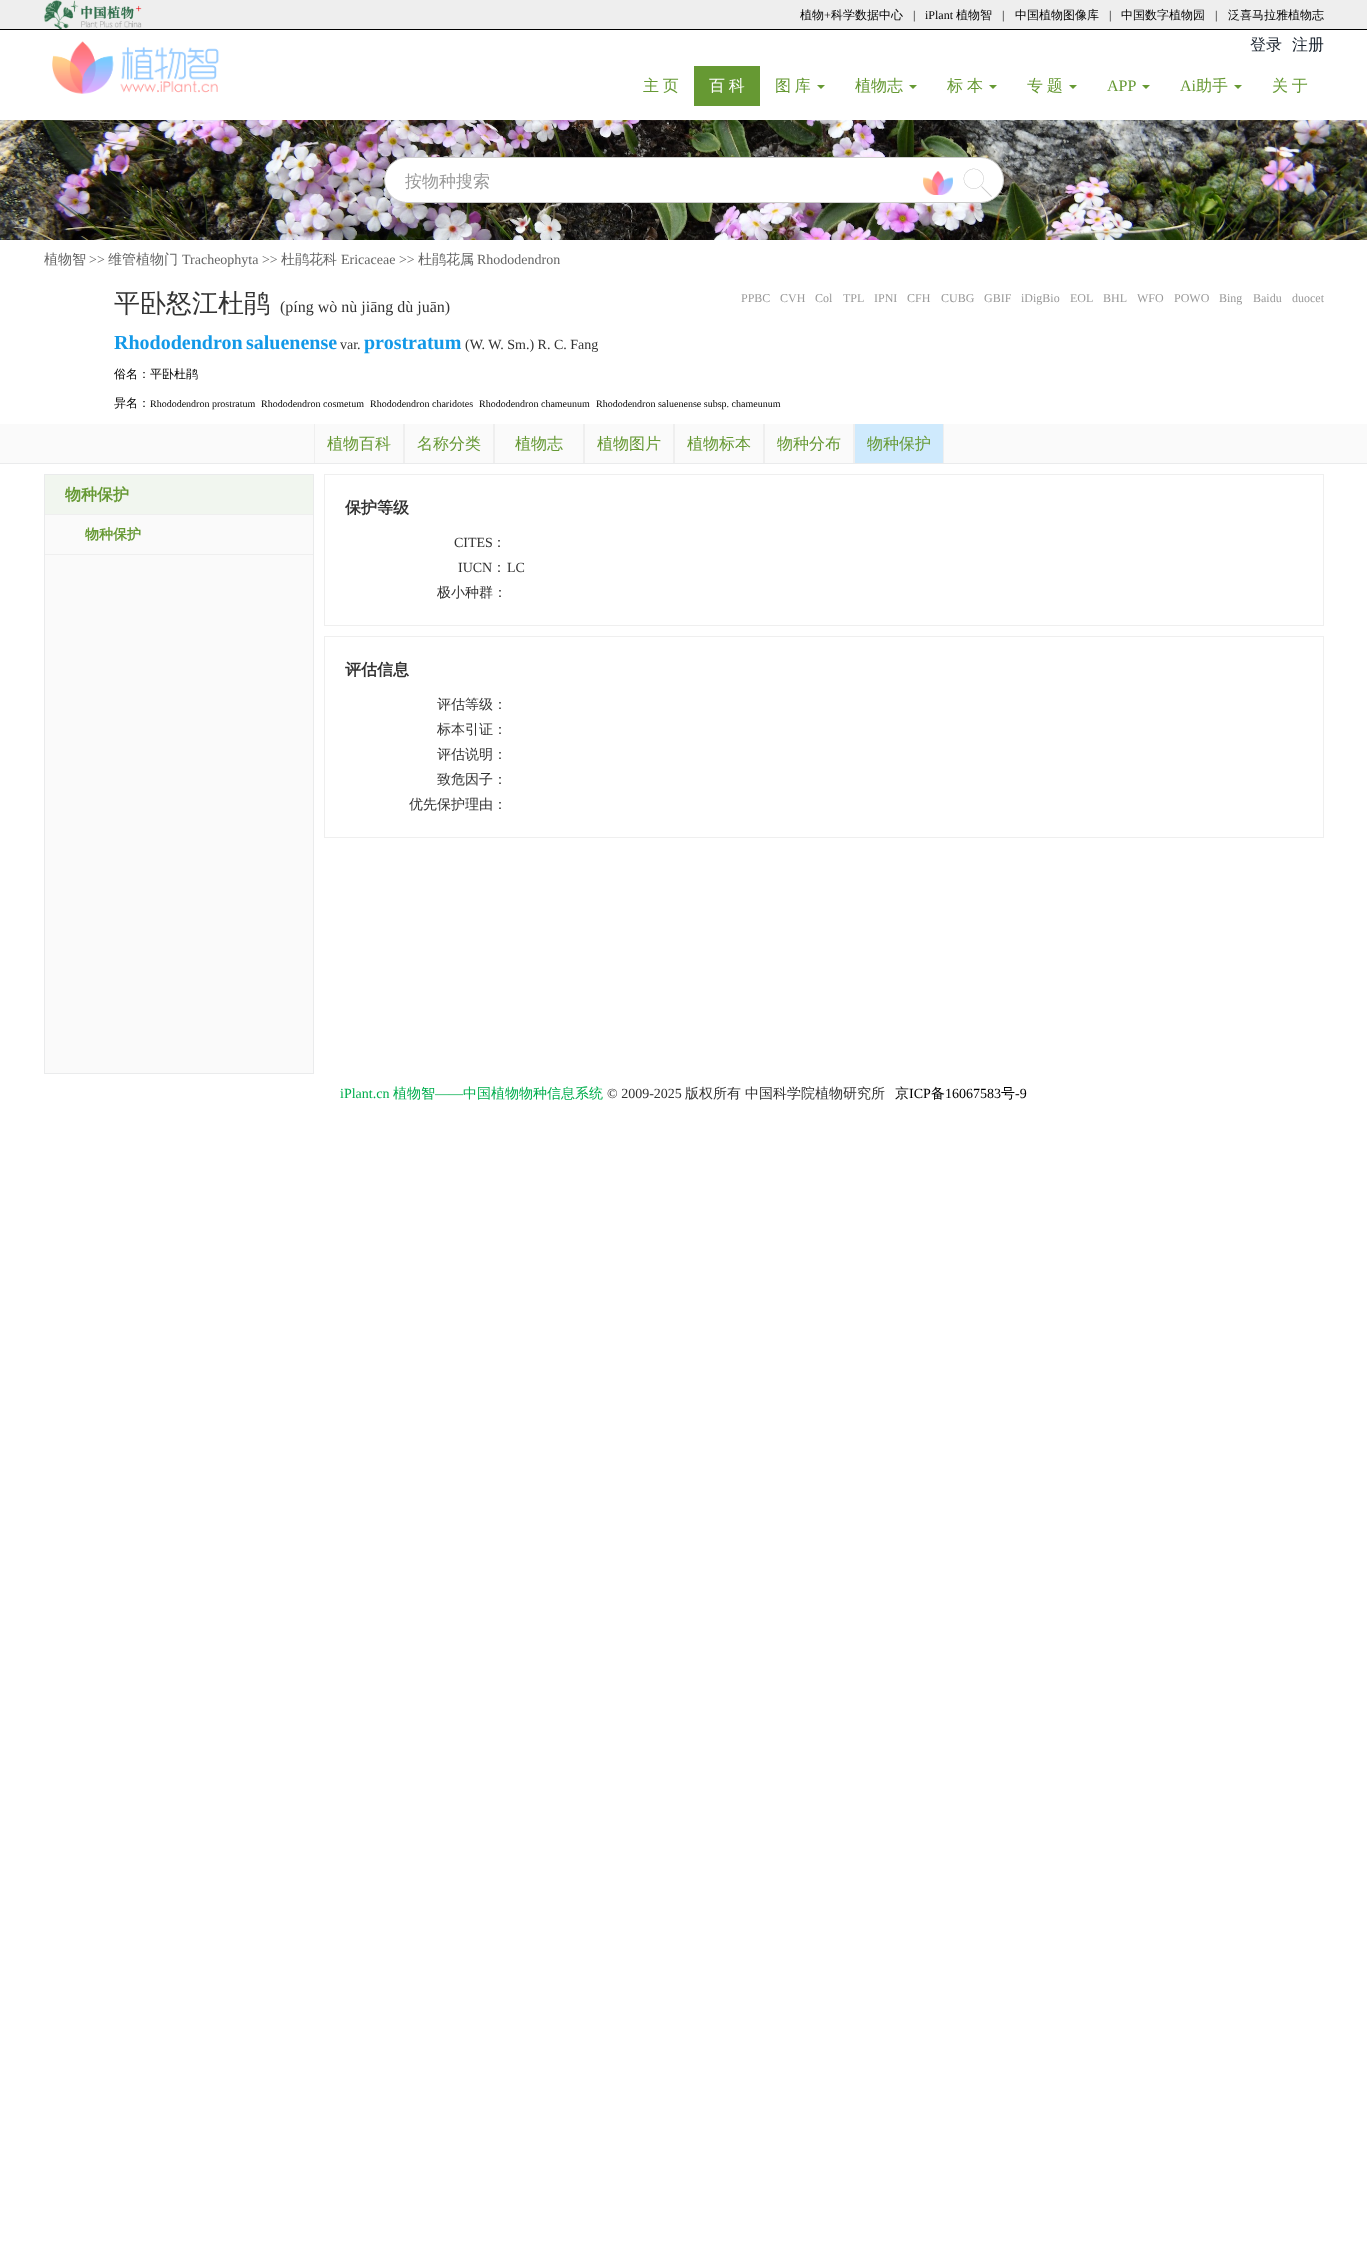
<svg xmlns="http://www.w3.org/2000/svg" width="1367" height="2249">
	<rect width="100%" height="100%" fill="#FFFFFF" />
	<rect x="0" y="0" width="1367" height="29" fill="#EEEEEE" />
	<rect x="0" y="29" width="1367" height="1" fill="#000000" />
	<image x="44" y="0" width="98" height="29" href="assets/img1.png" />
	<text x="800" y="19" font-family="WenQuanYi Zen Hei" font-size="12" font-weight="500" fill="#000000">植物</text>
	<text x="824" y="19" font-family="Liberation Serif" font-size="12" fill="#000000">+</text>
	<text x="831" y="19" font-family="WenQuanYi Zen Hei" font-size="12" font-weight="500" fill="#000000">科学数据中心</text>
	<g font-family="Liberation Serif" font-size="12" fill="#000000">
		<text x="913" y="19">|</text>
		<text x="925" y="19">iPlant</text>
	</g>
	<text x="956" y="19" font-family="WenQuanYi Zen Hei" font-size="12" font-weight="500" fill="#000000">植物智</text>
	<text x="1002" y="19" font-family="Liberation Serif" font-size="12" fill="#000000">|</text>
	<text x="1015" y="19" font-family="WenQuanYi Zen Hei" font-size="12" font-weight="500" fill="#000000">中国植物图像库</text>
	<text x="1109" y="19" font-family="Liberation Serif" font-size="12" fill="#000000">|</text>
	<text x="1121" y="19" font-family="WenQuanYi Zen Hei" font-size="12" font-weight="500" fill="#000000">中国数字植物园</text>
	<text x="1215" y="19" font-family="Liberation Serif" font-size="12" fill="#000000">|</text>
	<text x="1228" y="19" font-family="WenQuanYi Zen Hei" font-size="12" font-weight="500" fill="#000000">泛喜马拉雅植物志</text>
	<image x="52" y="41" width="167" height="53" href="assets/img2.png" />
	<g font-family="WenQuanYi Zen Hei" font-size="16" font-weight="500" fill="#1B242F">
		<text x="1250" y="50">登录</text>
		<text x="1292" y="50">注册</text>
	</g>
	<text x="643" y="91" word-spacing="-1" font-family="WenQuanYi Zen Hei" font-size="16" font-weight="500" fill="#669934">主 页</text>
	<rect x="694" y="66" width="66" height="40" fill="#669933" />
	<text x="709" y="91" word-spacing="-1" font-family="WenQuanYi Zen Hei" font-size="16" font-weight="500" fill="#FFFFFF">百 科</text>
	<text x="775" y="91" word-spacing="-1" font-family="WenQuanYi Zen Hei" font-size="16" font-weight="500" fill="#669934">图 库</text>
	<path d="M817 85H825L821 89Z" fill="#669933" />
	<text x="855" y="91" font-family="WenQuanYi Zen Hei" font-size="16" font-weight="500" fill="#669934">植物志</text>
	<path d="M909 85H917L913 89Z" fill="#669933" />
	<g font-family="WenQuanYi Zen Hei" font-size="16" font-weight="500" fill="#669934">
		<text x="947" y="91">标</text>
		<text x="967" y="91">本</text>
	</g>
	<path d="M989 85H997L993 89Z" fill="#669933" />
	<text x="1027" y="91" word-spacing="-1" font-family="WenQuanYi Zen Hei" font-size="16" font-weight="500" fill="#669934">专 题</text>
	<path d="M1069 85H1077L1073 89Z" fill="#669933" />
	<text x="1107" y="91" font-family="Liberation Serif" font-size="16" fill="#669934">APP</text>
	<path d="M1142 85H1150L1146 89Z" fill="#669933" />
	<text x="1180" y="91" font-family="Liberation Serif" font-size="16" fill="#669934">Ai</text>
	<text x="1196" y="91" font-family="WenQuanYi Zen Hei" font-size="16" font-weight="500" fill="#669934">助手</text>
	<path d="M1234 85H1242L1238 89Z" fill="#669933" />
	<text x="1272" y="91" word-spacing="-1" font-family="WenQuanYi Zen Hei" font-size="16" font-weight="500" fill="#669934">关 于</text>
	<image x="0" y="120" width="1367" height="120" href="assets/img3.png" />
	<rect x="384.5" y="157.5" width="619" height="45" rx="22.5" fill="#FFFFFF" stroke="#CCCCCC" />
	<rect x="405" y="201" width="1" height="1" fill="#FFFFFF" />
	<text x="405" y="187" font-family="WenQuanYi Zen Hei" font-size="17" font-weight="500" fill="#999999">按物种搜索</text>
	<image x="923" y="171" width="30" height="24" href="assets/img4.png" />
	<image x="963" y="168" width="29" height="29" href="assets/img5.png" />
	<text x="44" y="264" font-family="WenQuanYi Zen Hei" font-size="14" font-weight="500" fill="#666666">植物智</text>
	<text x="89" y="264" font-family="Liberation Serif" font-size="14" fill="#666666">&gt;&gt;</text>
	<text x="108" y="264" font-family="WenQuanYi Zen Hei" font-size="14" font-weight="500" fill="#666666">维管植物门</text>
	<text x="182" y="264" font-family="Liberation Serif" font-size="14" fill="#666666">Tracheophyta &gt;&gt;</text>
	<text x="281" y="264" font-family="WenQuanYi Zen Hei" font-size="14" font-weight="500" fill="#666666">杜鹃花科</text>
	<text x="341" y="264" font-family="Liberation Serif" font-size="14" fill="#666666">Ericaceae &gt;&gt;</text>
	<text x="418" y="264" font-family="WenQuanYi Zen Hei" font-size="14" font-weight="500" fill="#666666">杜鹃花属</text>
	<text x="477" y="264" font-family="Liberation Serif" font-size="14" fill="#666666">Rhododendron</text>
	<text x="114" y="312" font-family="WenQuanYi Zen Hei" font-size="26" font-weight="500" fill="#333333">平卧怒江杜鹃</text>
	<text x="280" y="312" font-family="Liberation Serif" font-size="16" fill="#333333">(píng wò nù jiāng dù juān)</text>
	<g font-family="Liberation Serif" font-size="12" fill="#999999">
		<text x="741" y="302">PPBC</text>
		<text x="780" y="302">CVH</text>
		<text x="815" y="302">Col</text>
		<text x="843" y="302">TPL</text>
		<text x="874" y="302">IPNI</text>
		<text x="907" y="302">CFH</text>
		<text x="941" y="302">CUBG</text>
		<text x="984" y="302">GBIF</text>
		<text x="1021" y="302">iDigBio</text>
		<text x="1070" y="302">EOL</text>
		<text x="1103" y="302">BHL</text>
		<text x="1137" y="302">WFO</text>
		<text x="1174" y="302">POWO</text>
		<text x="1219" y="302">Bing</text>
		<text x="1253" y="302">Baidu</text>
		<text x="1292" y="302">duocet</text>
	</g>
	<g font-family="Liberation Serif" font-size="20" font-weight="700" fill="#1399E8">
		<text x="114" y="349">Rhododendron</text>
		<text x="246" y="349">saluenense</text>
	</g>
	<text x="340" y="349" font-family="Liberation Serif" font-size="14" fill="#333333">var.</text>
	<text x="364" y="349" font-family="Liberation Serif" font-size="20" font-weight="700" fill="#1399E8">prostratum</text>
	<text x="465" y="349" font-family="Liberation Serif" font-size="14" fill="#333333">(W. W. Sm.) R. C. Fang</text>
	<g font-family="WenQuanYi Zen Hei" font-size="12" font-weight="500" fill="#000000">
		<text x="114" y="378">俗名：平卧杜鹃</text>
		<text x="114" y="407">异名：</text>
	</g>
	<g font-family="Liberation Serif" font-size="10" fill="#000000">
		<text x="150" y="407">Rhododendron prostratum</text>
		<text x="261" y="407">Rhododendron cosmetum</text>
		<text x="370" y="407">Rhododendron charidotes</text>
		<text x="479" y="407">Rhododendron chameunum</text>
		<text x="596" y="407">Rhododendron saluenense subsp. chameunum</text>
	</g>
	<rect x="0" y="424" width="1367" height="39" fill="#FAFAFA" />
	<rect x="0" y="463" width="1367" height="1" fill="#EAEBEC" />
	<rect x="403" y="424" width="2" height="39" fill="#EFEFEF" />
	<rect x="314" y="424" width="1" height="39" fill="#EFEFEF" />
	<text x="327" y="449" font-family="WenQuanYi Zen Hei" font-size="16" font-weight="500" fill="#669934">植物百科</text>
	<rect x="493" y="424" width="2" height="39" fill="#EFEFEF" />
	<text x="417" y="449" font-family="WenQuanYi Zen Hei" font-size="16" font-weight="500" fill="#669934">名称分类</text>
	<rect x="583" y="424" width="2" height="39" fill="#EFEFEF" />
	<text x="515" y="449" font-family="WenQuanYi Zen Hei" font-size="16" font-weight="500" fill="#669934">植物志</text>
	<rect x="673" y="424" width="2" height="39" fill="#EFEFEF" />
	<text x="597" y="449" font-family="WenQuanYi Zen Hei" font-size="16" font-weight="500" fill="#669934">植物图片</text>
	<rect x="763" y="424" width="2" height="39" fill="#EFEFEF" />
	<text x="687" y="449" font-family="WenQuanYi Zen Hei" font-size="16" font-weight="500" fill="#669934">植物标本</text>
	<rect x="853" y="424" width="2" height="39" fill="#EFEFEF" />
	<text x="777" y="449" font-family="WenQuanYi Zen Hei" font-size="16" font-weight="500" fill="#669934">物种分布</text>
	<rect x="855" y="424" width="88" height="39" fill="#CFEAFD" />
	<rect x="943" y="424" width="1" height="39" fill="#EFEFEF" />
	<text x="867" y="449" font-family="WenQuanYi Zen Hei" font-size="16" font-weight="500" fill="#669934">物种保护</text>
	<rect x="45" y="515" width="268" height="558" fill="#FAFAFA" />
	<rect x="44.5" y="474.5" width="269" height="599" fill="none" stroke="#EAEBEC" />
	<rect x="45" y="475" width="268" height="39" fill="#F1F6EF" />
	<rect x="45" y="514" width="268" height="1" fill="#EFEFEF" />
	<text x="65" y="500" font-family="WenQuanYi Zen Hei" font-size="16" font-weight="700" fill="#669934">物种保护</text>
	<rect x="45" y="554" width="268" height="1" fill="#EFEFEF" />
	<text x="85" y="539" font-family="WenQuanYi Zen Hei" font-size="14" font-weight="700" fill="#669934">物种保护</text>
	<rect x="324.5" y="474.5" width="999" height="151" fill="none" stroke="#EFEFEF" />
	<text x="345" y="513" font-family="WenQuanYi Zen Hei" font-size="16" font-weight="700" fill="#333333">保护等级</text>
	<text x="454" y="547" font-family="Liberation Serif" font-size="14" fill="#333333">CITES</text>
	<text x="492" y="547" font-family="WenQuanYi Zen Hei" font-size="14" font-weight="500" fill="#333333">：</text>
	<text x="458" y="572" font-family="Liberation Serif" font-size="14" fill="#333333">IUCN</text>
	<text x="492" y="572" font-family="WenQuanYi Zen Hei" font-size="14" font-weight="500" fill="#333333">：</text>
	<text x="507" y="572" font-family="Liberation Serif" font-size="14" fill="#333333">LC</text>
	<text x="437" y="597" font-family="WenQuanYi Zen Hei" font-size="14" font-weight="500" fill="#333333">极小种群：</text>
	<rect x="324.5" y="636.5" width="999" height="201" fill="none" stroke="#EFEFEF" />
	<text x="345" y="675" font-family="WenQuanYi Zen Hei" font-size="16" font-weight="700" fill="#333333">评估信息</text>
	<g font-family="WenQuanYi Zen Hei" font-size="14" font-weight="500" fill="#333333">
		<text x="437" y="709">评估等级：</text>
		<text x="437" y="734">标本引证：</text>
		<text x="437" y="759">评估说明：</text>
		<text x="437" y="784">致危因子：</text>
		<text x="409" y="809">优先保护理由：</text>
	</g>
	<text x="340" y="1098" font-family="Liberation Serif" font-size="14" fill="#00AE4D">iPlant.cn</text>
	<text x="393" y="1098" font-family="WenQuanYi Zen Hei" font-size="14" font-weight="500" fill="#00AE4D">植物智</text>
	<text x="435" y="1098" font-family="Liberation Serif" font-size="14" fill="#00AE4D">——</text>
	<text x="463" y="1098" font-family="WenQuanYi Zen Hei" font-size="14" font-weight="500" fill="#00AE4D">中国植物物种信息系统</text>
	<text x="607" y="1098" font-family="Liberation Serif" font-size="14" fill="#333333">© 2009-2025</text>
	<g font-family="WenQuanYi Zen Hei" font-size="14" font-weight="500" fill="#333333">
		<text x="685" y="1098">版权所有</text>
		<text x="745" y="1098">中国科学院植物研究所</text>
	</g>
	<text x="895" y="1098" font-family="WenQuanYi Zen Hei" font-size="14" font-weight="500" fill="#000000">京</text>
	<text x="909" y="1098" font-family="Liberation Serif" font-size="14" fill="#000000">ICP</text>
	<text x="931" y="1098" font-family="WenQuanYi Zen Hei" font-size="14" font-weight="500" fill="#000000">备</text>
	<text x="945" y="1098" font-family="Liberation Serif" font-size="14" fill="#000000">16067583</text>
	<text x="1001" y="1098" font-family="WenQuanYi Zen Hei" font-size="14" font-weight="500" fill="#000000">号</text>
	<text x="1015" y="1098" font-family="Liberation Serif" font-size="14" fill="#000000">-9</text>
</svg>
